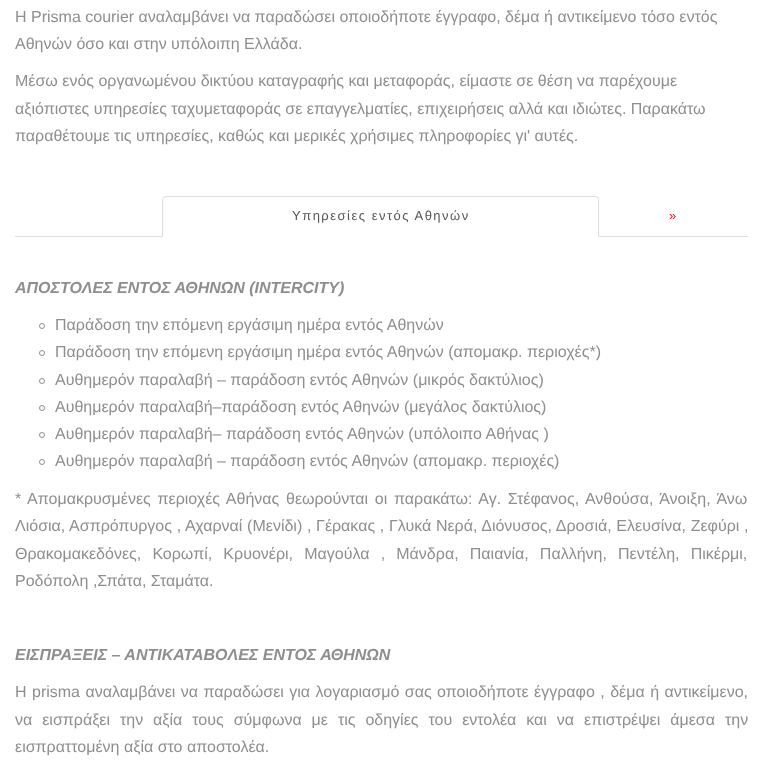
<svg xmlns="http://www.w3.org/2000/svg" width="763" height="782">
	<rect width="100%" height="100%" fill="#FFFFFF" />
	<g font-family="Liberation Sans" font-size="16" fill="#8E8E8E">
		<text x="15" y="22">Η Prisma courier αναλαμβάνει να παραδώσει οποιοδήποτε έγγραφο, δέμα ή αντικείμενο τόσο εντός</text>
		<text x="15" y="49">Αθηνών όσο και στην υπόλοιπη Ελλάδα.</text>
		<text x="15" y="86">Μέσω ενός οργανωμένου δικτύου καταγραφής και μεταφοράς, είμαστε σε θέση να παρέχουμε</text>
		<text x="15" y="114">αξιόπιστες υπηρεσίες ταχυμεταφοράς σε επαγγελματίες, επιχειρήσεις αλλά και ιδιώτες. Παρακάτω</text>
		<text x="15" y="141">παραθέτουμε τις υπηρεσίες, καθώς και μερικές χρήσιμες πληροφορίες γι' αυτές.</text>
	</g>
	<rect x="15" y="236" width="733" height="1" fill="#DDDDDD" />
	<path d="M166 196H595C597 196 599 198 599 200V237H162V200C162 198 164 196 166 196Z" fill="#FFFFFF" />
	<path d="M166 196L163 197L164 198L166 197H595L597 198L598 197L595 196Z" fill="#DDDDDD" />
	<path d="M599 237V200C599 199 598.5 198 598 197L597 198C598 198 598 199 598 200V236Z" fill="#DDDDDD" />
	<path d="M162 237L163 236V200C163 199 163 198 164 198L163 197C162.5 198 162 199 162 200Z" fill="#DDDDDD" />
	<text x="292" y="220" font-family="Liberation Sans" font-size="13" letter-spacing="1.5" fill="#555555">Υπηρεσίες εντός Αθηνών</text>
	<text x="669" y="220" font-family="Liberation Sans" font-size="13" letter-spacing="1.5" fill="#FF0000">»</text>
	<text x="15" y="293" font-family="Liberation Sans" font-size="16" font-weight="700" font-style="italic" fill="#8E8E8E">ΑΠΟΣΤΟΛΕΣ ΕΝΤΟΣ ΑΘΗΝΩΝ (INTERCITY)</text>
	<circle cx="42" cy="326" r="2.5" fill="none" stroke="#8E8E8E" />
	<text x="55" y="330" font-family="Liberation Sans" font-size="16" fill="#8E8E8E">Παράδοση την επόμενη εργάσιμη ημέρα εντός Αθηνών</text>
	<circle cx="42" cy="353" r="2.5" fill="none" stroke="#8E8E8E" />
	<text x="55" y="357" font-family="Liberation Sans" font-size="16" fill="#8E8E8E">Παράδοση την επόμενη εργάσιμη ημέρα εντός Αθηνών (απομακρ. περιοχές*)</text>
	<circle cx="42" cy="381" r="2.5" fill="none" stroke="#8E8E8E" />
	<text x="55" y="385" font-family="Liberation Sans" font-size="16" fill="#8E8E8E">Αυθημερόν παραλαβή – παράδοση εντός Αθηνών (μικρός δακτύλιος)</text>
	<circle cx="42" cy="408" r="2.5" fill="none" stroke="#8E8E8E" />
	<text x="55" y="412" font-family="Liberation Sans" font-size="16" fill="#8E8E8E">Αυθημερόν παραλαβή–παράδοση εντός Αθηνών (μεγάλος δακτύλιος)</text>
	<circle cx="42" cy="435" r="2.5" fill="none" stroke="#8E8E8E" />
	<text x="55" y="439" font-family="Liberation Sans" font-size="16" fill="#8E8E8E">Αυθημερόν παραλαβή– παράδοση εντός Αθηνών (υπόλοιπο Αθήνας )</text>
	<circle cx="42" cy="462" r="2.5" fill="none" stroke="#8E8E8E" />
	<g font-family="Liberation Sans" font-size="16" fill="#8E8E8E">
		<text x="55" y="466">Αυθημερόν παραλαβή – παράδοση εντός Αθηνών (απομακρ. περιοχές)</text>
		<text x="15" y="504" word-spacing="2.25">* Απομακρυσμένες περιοχές Αθήνας θεωρούνται οι παρακάτω: Αγ. Στέφανος, Ανθούσα, Άνοιξη, Άνω</text>
		<text x="15" y="531" word-spacing="0.25">Λιόσια, Ασπρόπυργος , Αχαρναί (Μενίδι) , Γέρακας , Γλυκά Νερά, Διόνυσος, Δροσιά, Ελευσίνα, Ζεφύρι ,</text>
		<text x="15" y="559" word-spacing="6.75">Θρακομακεδόνες, Κορωπί, Κρυονέρι, Μαγούλα , Μάνδρα, Παιανία, Παλλήνη, Πεντέλη, Πικέρμι,</text>
		<text x="15" y="586">Ροδόπολη ,Σπάτα, Σταμάτα.</text>
	</g>
	<text x="15" y="660" font-family="Liberation Sans" font-size="16" font-weight="700" font-style="italic" fill="#8E8E8E">ΕΙΣΠΡΑΞΕΙΣ – ΑΝΤΙΚΑΤΑΒΟΛΕΣ ΕΝΤΟΣ ΑΘΗΝΩΝ</text>
	<g font-family="Liberation Sans" font-size="16" fill="#8E8E8E">
		<text x="15" y="697" word-spacing="1">Η prisma αναλαμβάνει να παραδώσει για λογαριασμό σας οποιοδήποτε έγγραφο , δέμα ή αντικείμενο,</text>
		<text x="15" y="725" word-spacing="5.5">να εισπράξει την αξία τους σύμφωνα με τις οδηγίες του εντολέα και να επιστρέψει άμεσα την</text>
		<text x="15" y="752">εισπραττομένη αξία στο αποστολέα.</text>
	</g>
</svg>
